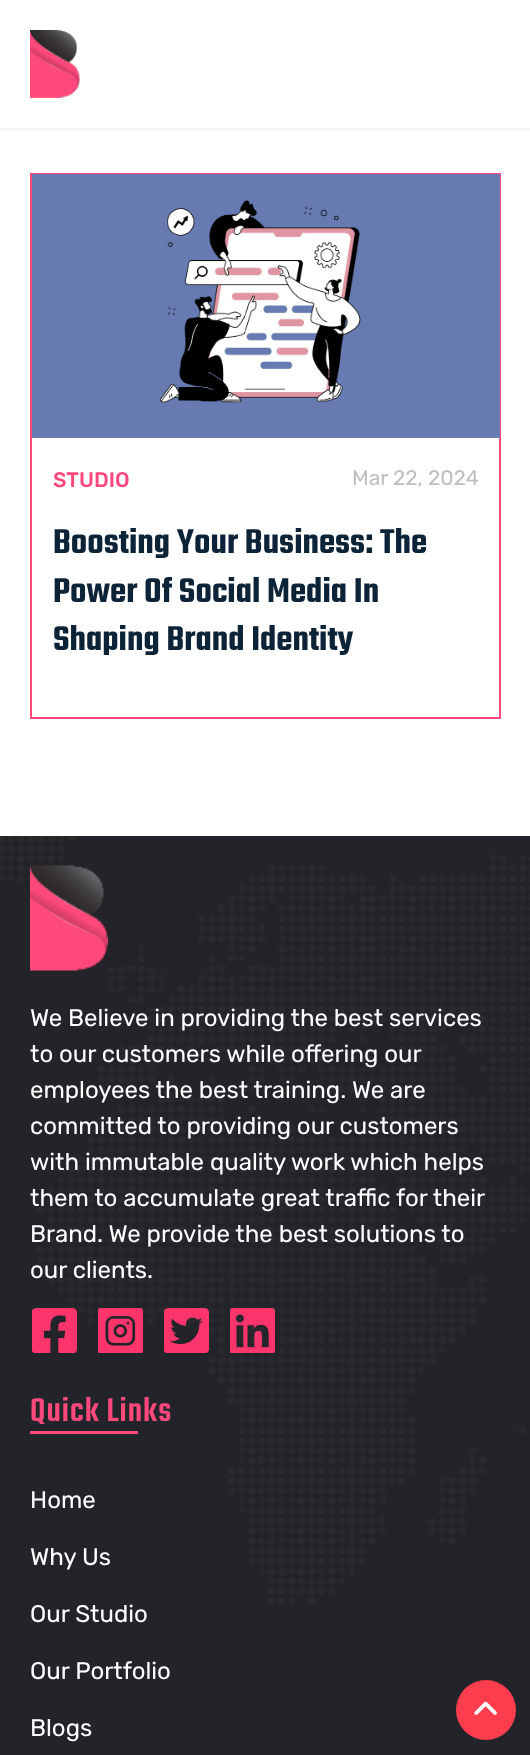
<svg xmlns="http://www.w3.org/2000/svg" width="530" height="1755">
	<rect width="100%" height="100%" fill="#FFFFFF" />
	<rect x="0" y="128" width="530" height="2" fill="#F4F4F4" />
	<image x="30" y="30" width="50" height="68" href="assets/img1.png" />
	<rect x="31" y="174" width="469" height="544" fill="none" stroke="#FF497C" stroke-width="2" />
	<image x="32" y="174" width="468" height="264" href="assets/img2.png" />
	<text x="53" y="487" font-family="Rubik" font-size="21" font-weight="500" fill="#FF497C">STUDIO</text>
	<text x="352" y="485" font-family="Rubik" font-size="21" fill="#BFBFBF">Mar 22, 2024</text>
	<g font-family="Teko" font-size="37.5" font-weight="600" fill="#0C2338">
		<text x="53" y="553">Boosting Your Business: The</text>
		<text x="53" y="602">Power Of Social Media In</text>
		<text x="53" y="650">Shaping Brand Identity</text>
	</g>
	<rect x="0" y="836" width="530" height="919" fill="#222429" />
	<image x="0" y="836" width="530" height="769" href="assets/img3.png" />
	<image x="30" y="865" width="78" height="106" href="assets/img4.png" />
	<g font-family="Rubik" font-size="24" fill="#FFFFFF">
		<text x="30" y="1026">We Believe in providing the best services</text>
		<text x="30" y="1062">to our customers while offering our</text>
		<text x="30" y="1098">employees the best training.</text>
		<text x="352" y="1098">We are</text>
		<text x="30" y="1134">committed to providing our customers</text>
		<text x="30" y="1170">with immutable quality work which helps</text>
		<text x="30" y="1206">them to accumulate great traffic for their</text>
		<text x="30" y="1242">Brand. We provide the best solutions to</text>
		<text x="30" y="1278">our clients.</text>
	</g>
	<image x="32" y="1308" width="45" height="45" href="assets/img5.png" />
	<image x="98" y="1308" width="45" height="45" href="assets/img6.png" />
	<image x="164" y="1308" width="45" height="45" href="assets/img7.png" />
	<image x="230" y="1308" width="45" height="45" href="assets/img8.png" />
	<text x="30" y="1421" font-family="Teko" font-size="36" font-weight="500" letter-spacing="1" fill="#FF497C">Quick Links</text>
	<rect x="30" y="1431" width="108" height="3" fill="#FF497C" />
	<g font-family="Rubik" font-size="24" fill="#FFFFFF">
		<text x="30" y="1508">Home</text>
		<text x="30" y="1565">Why Us</text>
		<text x="30" y="1622">Our Studio</text>
		<text x="30" y="1679">Our Portfolio</text>
		<text x="30" y="1736">Blogs</text>
	</g>
	<circle cx="486" cy="1710" r="30" fill="#FB3D4E" />
	<image x="474" y="1701" width="23" height="14" href="assets/img9.png" />
</svg>
